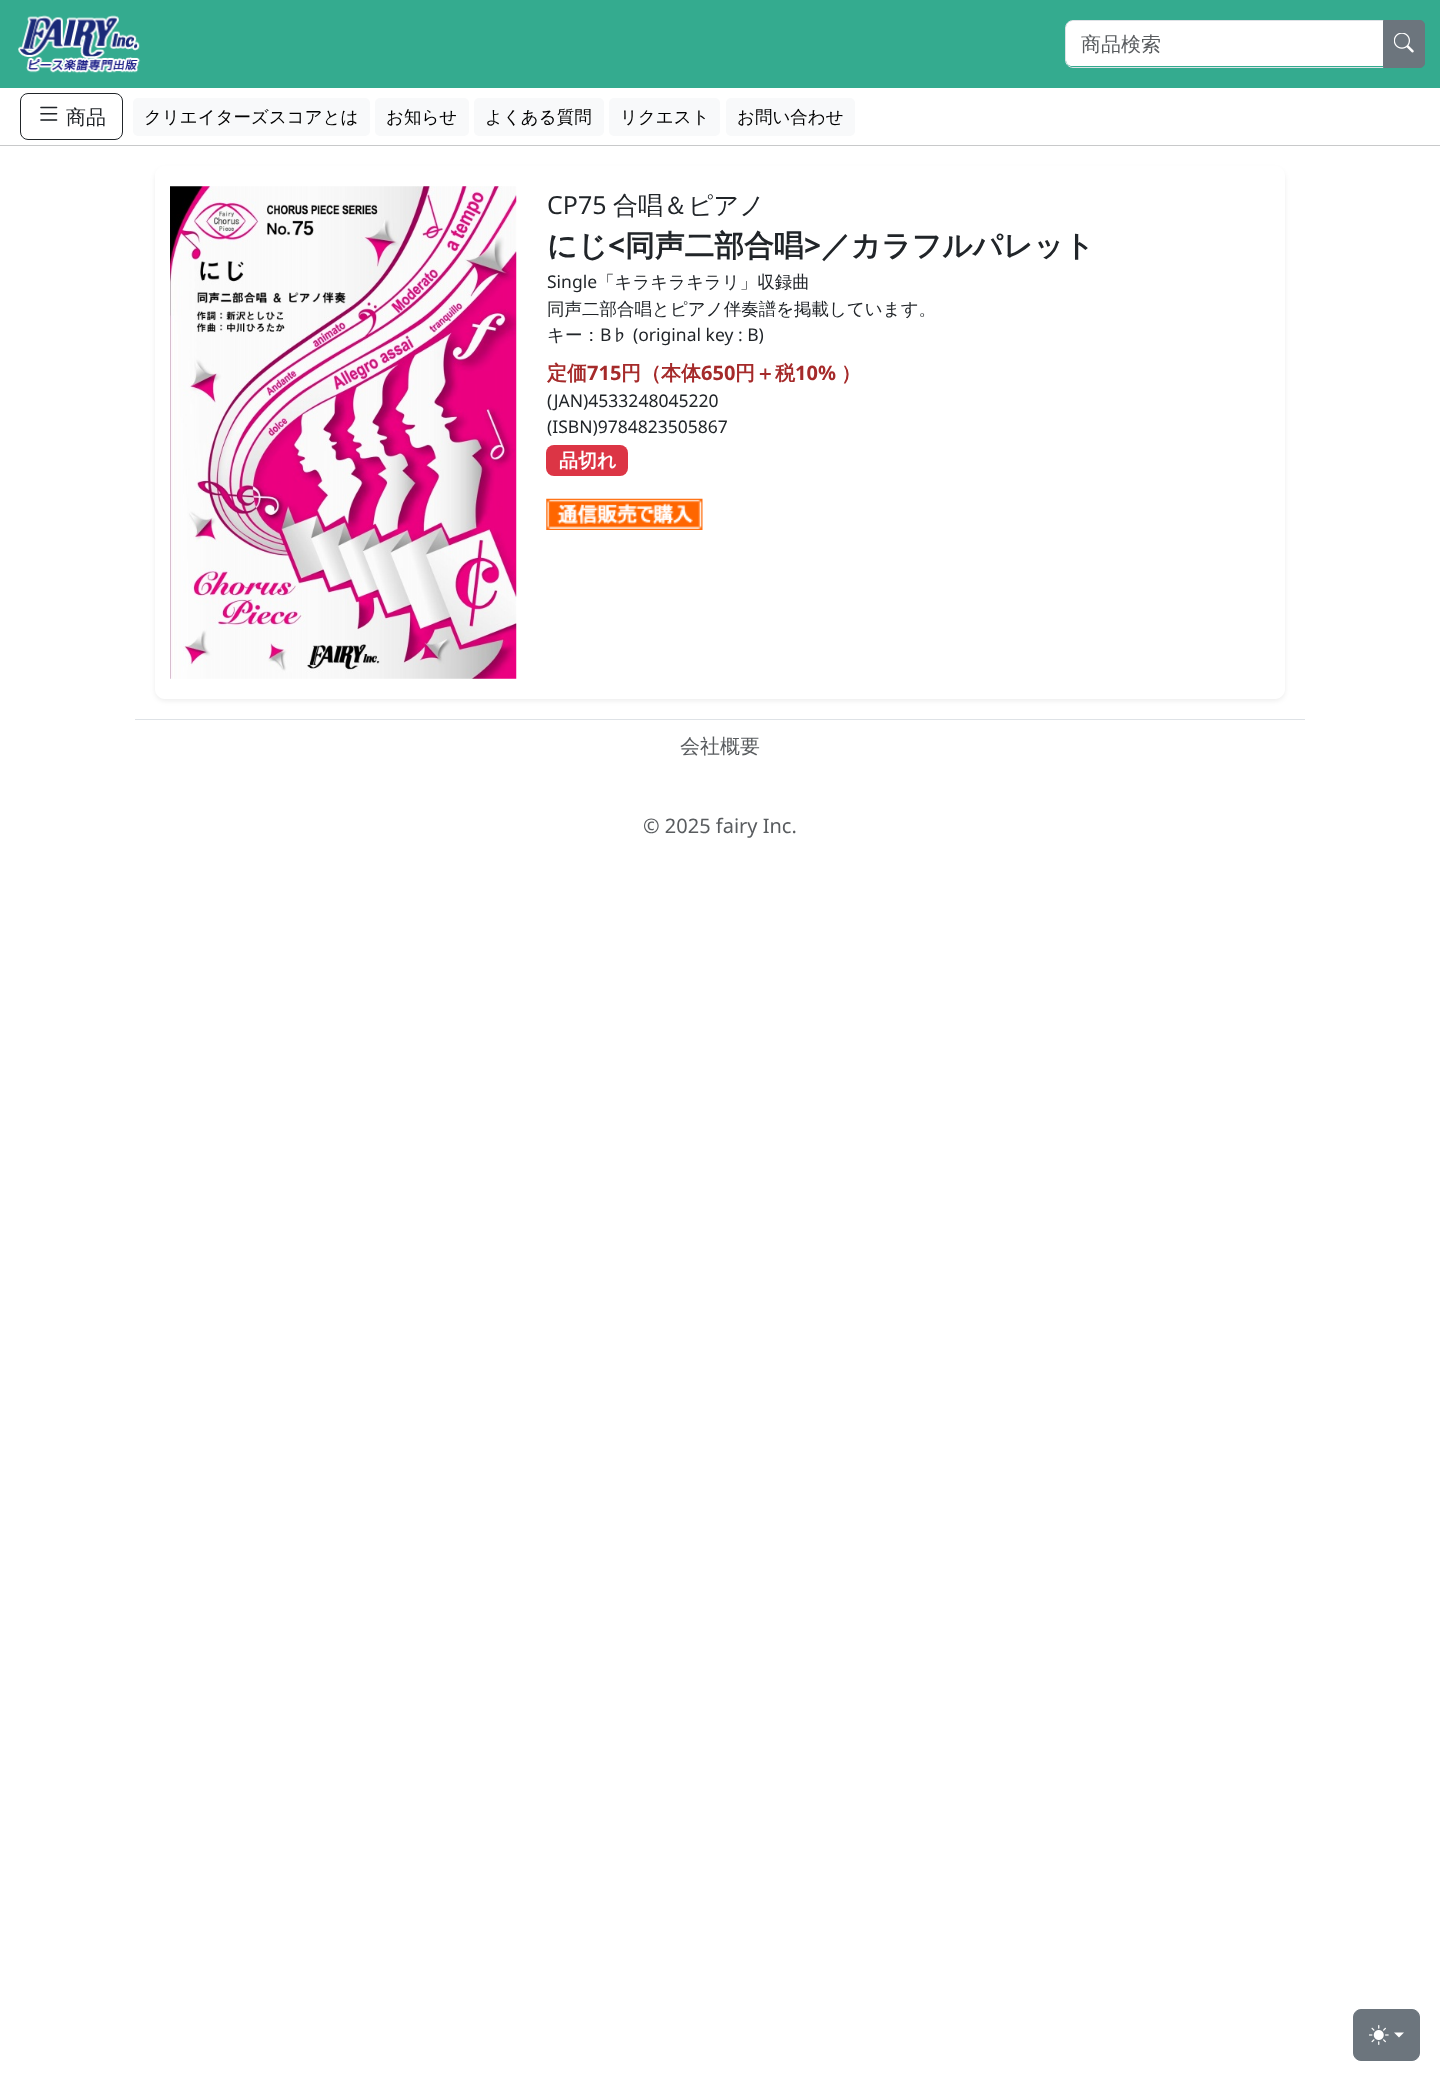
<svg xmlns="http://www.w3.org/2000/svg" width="1440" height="2081">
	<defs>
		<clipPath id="clip1"><path d="M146 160H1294V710H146ZM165 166H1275C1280.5 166 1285 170.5 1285 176V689C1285 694.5 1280.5 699 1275 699H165C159.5 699 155 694.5 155 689V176C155 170.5 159.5 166 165 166Z" clip-rule="evenodd" /></clipPath>
	</defs>
	<rect width="100%" height="100%" fill="#FFFFFF" />
	<rect x="0" y="0" width="1440" height="88" fill="#34AB8F" />
	<image x="18" y="15" width="123" height="59" href="assets/img1.png" />
	<path d="M1072 21H1383V66H1072C1068.5 66 1066 63.5 1066 60V27C1066 23.5 1068.5 21 1072 21Z" fill="#FFFFFF" />
	<path d="M1073 20.5H1383.5V67.5H1073C1069 67.5 1065.5 64 1065.5 60V28C1065.5 24 1069 20.5 1073 20.5Z" fill="none" stroke="#DEE2E6" />
	<text x="1081" y="51" font-family="WenQuanYi Zen Hei" font-size="20" font-weight="500" fill="#595C5F">商品検索</text>
	<path d="M1383.5 20.5H1420C1422.5 20.5 1424.5 22.5 1424.5 25V63C1424.5 65.5 1422.5 67.5 1420 67.5H1383.5Z" fill="#6C757D" stroke="#6C757D" />
	<image x="1394" y="33" width="20" height="20" href="assets/img2.png" />
	<rect x="20.5" y="93.5" width="102" height="46" rx="7.5" fill="none" stroke="#212529" />
	<image x="40" y="106" width="18" height="15" href="assets/img3.png" />
	<text x="66" y="124" font-family="WenQuanYi Zen Hei" font-size="20" font-weight="500" fill="#212529">商品</text>
	<rect x="133" y="98" width="237" height="38" rx="5" fill="#F8F9FA" />
	<text x="144" y="123" font-family="WenQuanYi Zen Hei" font-size="17.5" font-weight="500" fill="#000000">クリエイターズスコアとは</text>
	<rect x="375" y="98" width="94" height="38" rx="5" fill="#F8F9FA" />
	<text x="386" y="123" font-family="WenQuanYi Zen Hei" font-size="17.5" font-weight="500" fill="#000000">お知らせ</text>
	<rect x="474" y="98" width="130" height="38" rx="5" fill="#F8F9FA" />
	<text x="485" y="123" font-family="WenQuanYi Zen Hei" font-size="17.5" font-weight="500" fill="#000000">よくある質問</text>
	<rect x="609" y="98" width="111" height="38" rx="5" fill="#F8F9FA" />
	<text x="620" y="123" font-family="WenQuanYi Zen Hei" font-size="17.5" font-weight="500" fill="#000000">リクエスト</text>
	<rect x="726" y="98" width="129" height="38" rx="5" fill="#F8F9FA" />
	<text x="737" y="123" font-family="WenQuanYi Zen Hei" font-size="17.5" font-weight="500" fill="#000000">お問い合わせ</text>
	<rect x="0" y="145" width="1440" height="1" fill="#C8C9CA" />
	<g clip-path="url(#clip1)">
		<rect x="155" y="169" width="1130" height="532" rx="10" fill="#000000" fill-opacity="0.07" filter="blur(2.5px)" />
	</g>
	<image x="170" y="186" width="347" height="493" href="assets/img4.png" />
	<text x="547" y="214" font-family="Noto Sans" font-size="25" fill="#212529">CP75</text>
	<text x="613" y="214" font-family="WenQuanYi Zen Hei" font-size="25" font-weight="500" fill="#212529">合唱＆ピアノ</text>
	<text x="547" y="256" font-family="WenQuanYi Zen Hei" font-size="29.75" font-weight="700" fill="#212529">にじ</text>
	<text x="608" y="256" font-family="Noto Sans" font-size="29.75" font-weight="700" fill="#212529">&lt;</text>
	<text x="625" y="256" font-family="WenQuanYi Zen Hei" font-size="29.75" font-weight="700" fill="#212529">同声二部合唱</text>
	<text x="804" y="256" font-family="Noto Sans" font-size="29.75" font-weight="700" fill="#212529">&gt;</text>
	<text x="821" y="256" font-family="WenQuanYi Zen Hei" font-size="29.75" font-weight="700" fill="#212529">／カラフルパレット</text>
	<text x="547" y="288" font-family="Noto Sans" font-size="17.5" fill="#212529">Single</text>
	<g font-family="WenQuanYi Zen Hei" font-size="17.5" font-weight="500" fill="#212529">
		<text x="597" y="288">「キラキラキラリ」収録曲</text>
		<text x="547" y="315">同声二部合唱とピアノ伴奏譜を掲載しています。</text>
		<text x="547" y="341">キー：</text>
	</g>
	<text x="600" y="341" font-family="Noto Sans" font-size="17.5" fill="#212529">B</text>
	<text x="611" y="341" font-family="WenQuanYi Zen Hei" font-size="17.5" font-weight="500" fill="#212529">♭</text>
	<text x="633" y="341" font-family="Noto Sans" font-size="17.5" fill="#212529">(original key : B)</text>
	<text x="547" y="380" font-family="WenQuanYi Zen Hei" font-size="20" font-weight="700" fill="#A52A2A">定価</text>
	<text x="587" y="380" font-family="Noto Sans" font-size="20" font-weight="700" fill="#A52A2A">715</text>
	<text x="621" y="380" font-family="WenQuanYi Zen Hei" font-size="20" font-weight="700" fill="#A52A2A">円（本体</text>
	<text x="701" y="380" font-family="Noto Sans" font-size="20" font-weight="700" fill="#A52A2A">650</text>
	<text x="735" y="380" font-family="WenQuanYi Zen Hei" font-size="20" font-weight="700" fill="#A52A2A">円＋税</text>
	<text x="795" y="380" font-family="Noto Sans" font-size="20" font-weight="700" fill="#A52A2A">10%</text>
	<text x="841" y="380" font-family="WenQuanYi Zen Hei" font-size="20" font-weight="700" fill="#A52A2A">）</text>
	<g font-family="Noto Sans" font-size="17.5" fill="#212529">
		<text x="547" y="407">(JAN)4533248045220</text>
		<text x="547" y="433">(ISBN)9784823505867</text>
	</g>
	<rect x="546" y="445" width="82" height="31" rx="8" fill="#DC3545" />
	<text x="559" y="467" font-family="WenQuanYi Zen Hei" font-size="19" font-weight="700" fill="#FFFFFF">品切れ</text>
	<image x="546" y="498" width="157" height="32" href="assets/img5.png" />
	<rect x="135" y="719" width="1170" height="1" fill="#DEE2E6" />
	<text x="680" y="753" font-family="WenQuanYi Zen Hei" font-size="20" font-weight="500" fill="#595C5F">会社概要</text>
	<text x="643" y="833" font-family="Noto Sans" font-size="20" fill="#595C5F">© 2025 fairy Inc.</text>
	<rect x="1353.5" y="2009.5" width="66" height="51" rx="7.5" fill="#6C757D" stroke="#6C757D" />
	<image x="1369" y="2025" width="20" height="20" href="assets/img6.png" />
	<path d="M1394 2032.5H1404L1399 2037.5Z" fill="#FFFFFF" />
</svg>
